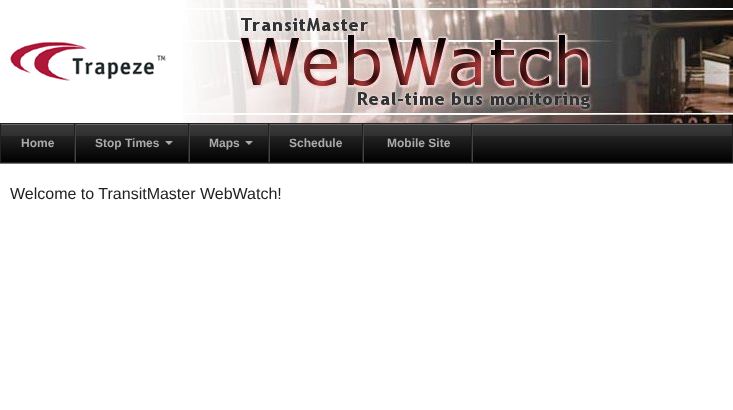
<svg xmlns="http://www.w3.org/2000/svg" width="733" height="410">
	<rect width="100%" height="100%" fill="#FFFFFF" />
	<image x="10" y="42" width="156" height="39" href="assets/img1.png" />
	<image x="183" y="0" width="550" height="123" href="assets/img2.png" />
	<rect x="0" y="124" width="733" height="40" fill="#777777" filter="blur(0.5px)" />
	<image x="1" y="125" width="731" height="37" href="assets/img3.png" />
	<rect x="1" y="124" width="731" height="1" fill="#666666" />
	<rect x="0.5" y="123.5" width="732" height="39" fill="none" stroke="#222222" />
	<rect x="75" y="124" width="1" height="38" fill="#444444" />
	<rect x="74" y="124" width="1" height="38" fill="#222222" />
	<text x="21" y="147" font-family="Liberation Sans" font-size="12" font-weight="700" fill="#AAAAAA">Home</text>
	<rect x="189" y="124" width="1" height="38" fill="#444444" />
	<rect x="188" y="124" width="1" height="38" fill="#222222" />
	<text x="95" y="147" font-family="Liberation Sans" font-size="12" font-weight="700" fill="#AAAAAA">Stop Times</text>
	<path d="M165 141H173L169 145Z" fill="#AAAAAA" />
	<rect x="269" y="124" width="1" height="38" fill="#444444" />
	<rect x="268" y="124" width="1" height="38" fill="#222222" />
	<text x="209" y="147" font-family="Liberation Sans" font-size="12" font-weight="700" fill="#AAAAAA">Maps</text>
	<path d="M245 141H253L249 145Z" fill="#AAAAAA" />
	<rect x="363" y="124" width="1" height="38" fill="#444444" />
	<rect x="362" y="124" width="1" height="38" fill="#222222" />
	<text x="289" y="147" font-family="Liberation Sans" font-size="12" font-weight="700" fill="#AAAAAA">Schedule</text>
	<rect x="472" y="124" width="1" height="38" fill="#444444" />
	<rect x="471" y="124" width="1" height="38" fill="#222222" />
	<text x="387" y="147" font-family="Liberation Sans" font-size="12" font-weight="700" fill="#AAAAAA">Mobile Site</text>
	<text x="10" y="199" font-family="Liberation Sans" font-size="16" fill="#222222">Welcome to TransitMaster WebWatch!</text>
</svg>
